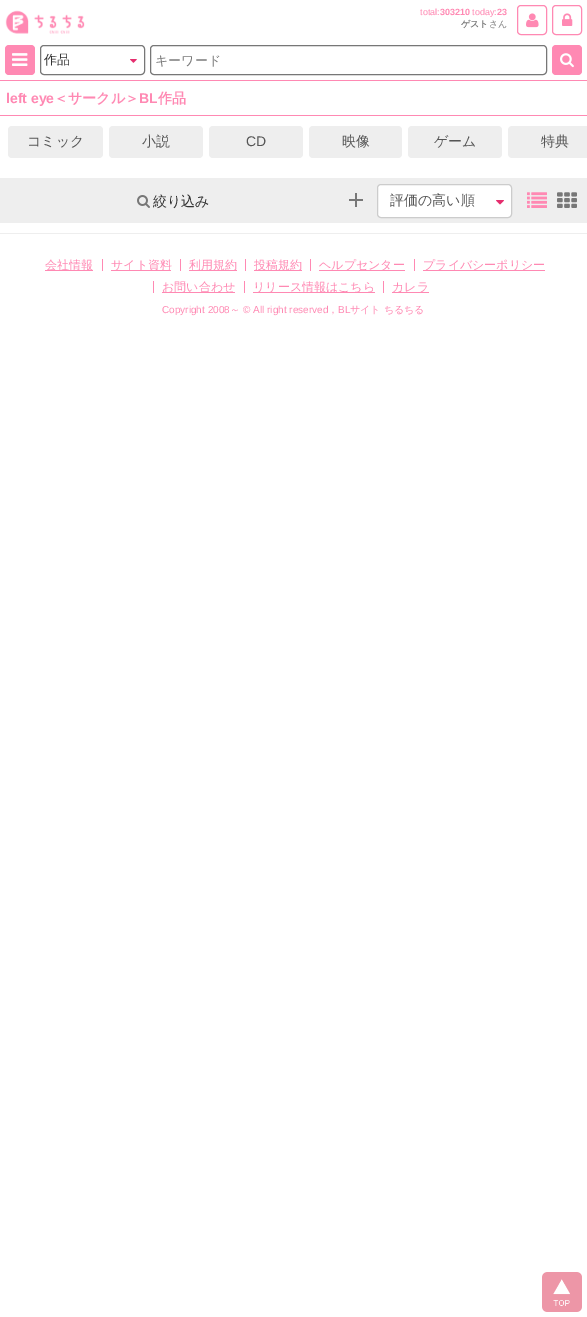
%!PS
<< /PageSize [587 1317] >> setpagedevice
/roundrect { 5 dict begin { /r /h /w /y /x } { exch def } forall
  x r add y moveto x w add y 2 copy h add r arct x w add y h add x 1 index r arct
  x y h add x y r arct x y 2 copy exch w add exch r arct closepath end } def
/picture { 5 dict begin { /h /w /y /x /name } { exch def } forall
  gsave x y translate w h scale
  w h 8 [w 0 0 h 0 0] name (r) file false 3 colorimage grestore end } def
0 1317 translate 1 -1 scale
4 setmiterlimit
1 setgray
0 0 587 1317 rectfill
(img1.rgb) 5 10 80 24 picture
/LiberationSans-Regular [9 0 0 -9 0 0] selectfont
1 0.537 0.702 setrgbcolor
420 15 moveto (total:) show
/LiberationSans-Bold [9 0 0 -9 0 0] selectfont
440 15 moveto (303210) show
/LiberationSans-Regular [9 0 0 -9 0 0] selectfont
472 15 moveto (today:) show
/LiberationSans-Bold [9 0 0 -9 0 0] selectfont
497 15 moveto (23) show
/WenQuanYiZenHei-Bold [9 0 0 -9 0 0] selectfont
0.467 setgray
461 27 moveto (ゲスト) show
/WenQuanYiZenHei-Medium [9 0 0 -9 0 0] selectfont
489 27 moveto (さん) show
1 0.537 0.702 setrgbcolor
517.5 5.5 29 29 3.5 roundrect stroke
(img2.rgb) 526 13 13 15 picture
552.5 5.5 29 29 3.5 roundrect stroke
(img3.rgb) 562 13 11 13 picture
5 45 30 30 4 roundrect fill
(img4.rgb) 12 53 16 13 picture
0.467 setgray
40.5 45.5 104 29 3.5 roundrect stroke
/WenQuanYiZenHei-Medium [13 0 0 -13 0 0] selectfont
0.2 setgray
44 64 moveto (作品) show
(img5.rgb) 130 59 7 4 picture
0.467 setgray
150.5 45.5 396 29 3.5 roundrect stroke
155 65 moveto (キーワード) show
1 0.537 0.702 setrgbcolor
552 45 30 30 4 roundrect fill
(img6.rgb) 560 53 14 15 picture
0 80 587 1 rectfill
0 115 587 1 rectfill
/LiberationSans-Bold [14 0 0 -14 0 0] selectfont
6 103 moveto (left eye) show
/WenQuanYiZenHei-Bold [14 0 0 -14 0 0] selectfont
54 103 moveto (＜サークル＞) show
/LiberationSans-Bold [14 0 0 -14 0 0] selectfont
139 103 moveto (BL) show
/WenQuanYiZenHei-Bold [14 0 0 -14 0 0] selectfont
158 103 moveto (作品) show
0.933 setgray
8 126 95 32 4 roundrect fill
/WenQuanYiZenHei-Medium [14 0 0 -14 0 0] selectfont
0.333 setgray
27 146 moveto (コミック) show
0.933 setgray
109 126 94 32 4 roundrect fill
0.333 setgray
142 146 moveto (小説) show
0.933 setgray
209 126 94 32 4 roundrect fill
/LiberationSans-Regular [14 0 0 -14 0 0] selectfont
0.333 setgray
246 146 moveto (CD) show
0.933 setgray
309 126 93 32 4 roundrect fill
/WenQuanYiZenHei-Medium [14 0 0 -14 0 0] selectfont
0.333 setgray
342 146 moveto (映像) show
0.933 setgray
408 126 94 32 4 roundrect fill
0.333 setgray
434 146 moveto (ゲーム) show
0.933 setgray
newpath 512 126 moveto 587 126 lineto 587 158 lineto 512 158 lineto 510 158 508 156 508 154 curveto 508 130 lineto 508 128 510 126 512 126 curveto closepath fill
0.333 setgray
541 146 moveto (特典) show
0.933 setgray
0 178 587 45 rectfill
(img7.rgb) 137 195 13 13 picture
0.2 setgray
153 206 moveto (絞り込み) show
0.467 setgray
355 193 2 14 rectfill
349 199 14 2 rectfill
1 setgray
377.5 184.5 134 33 3.5 roundrect gsave fill grestore
0.8 setgray
stroke
0.333 setgray
390 205 moveto (評価の高い順) show
(img8.rgb) 496 200 8 5 picture
(img9.rgb) 527 192 20 16 picture
(img10.rgb) 557 192 20 16 picture
0.933 setgray
0 233 587 1 rectfill
(img11.rgb) 542 1272 40 40 picture
1 0.537 0.702 setrgbcolor
45 270 48 1 rectfill
/WenQuanYiZenHei-Medium [12 0 0 -12 0 0] selectfont
45 269 moveto (会社情報) show
102 259 1 12 rectfill
111 270 60 1 rectfill
111 269 moveto (サイト資料) show
180 259 1 12 rectfill
189 270 48 1 rectfill
189 269 moveto (利用規約) show
245 259 1 12 rectfill
254 270 48 1 rectfill
254 269 moveto (投稿規約) show
310 259 1 12 rectfill
319 270 86 1 rectfill
319 269 moveto (ヘルプセンター) show
414 259 1 12 rectfill
423 270 122 1 rectfill
423 269 moveto (プライバシーポリシー) show
153 281 1 12 rectfill
162 292 73 1 rectfill
162 291 moveto (お問い合わせ) show
244 281 1 12 rectfill
253 292 122 1 rectfill
253 291 moveto (リリース情報はこちら) show
383 281 1 12 rectfill
392 292 37 1 rectfill
392 291 moveto (カレラ) show
/LiberationSans-Regular [10 0 0 -10 0 0] selectfont
162 313 moveto (Copyright 2008) show
/WenQuanYiZenHei-Medium [10 0 0 -10 0 0] selectfont
230 313 moveto (～) show
/LiberationSans-Regular [10 0 0 -10 0 0] selectfont
243 313 moveto (© All right reserved) show
338 313 moveto (BL) show
/WenQuanYiZenHei-Medium [10 0 0 -10 0 0] selectfont
350 313 moveto (サイト ちるちる) show
328 313 moveto (，) show
showpage
